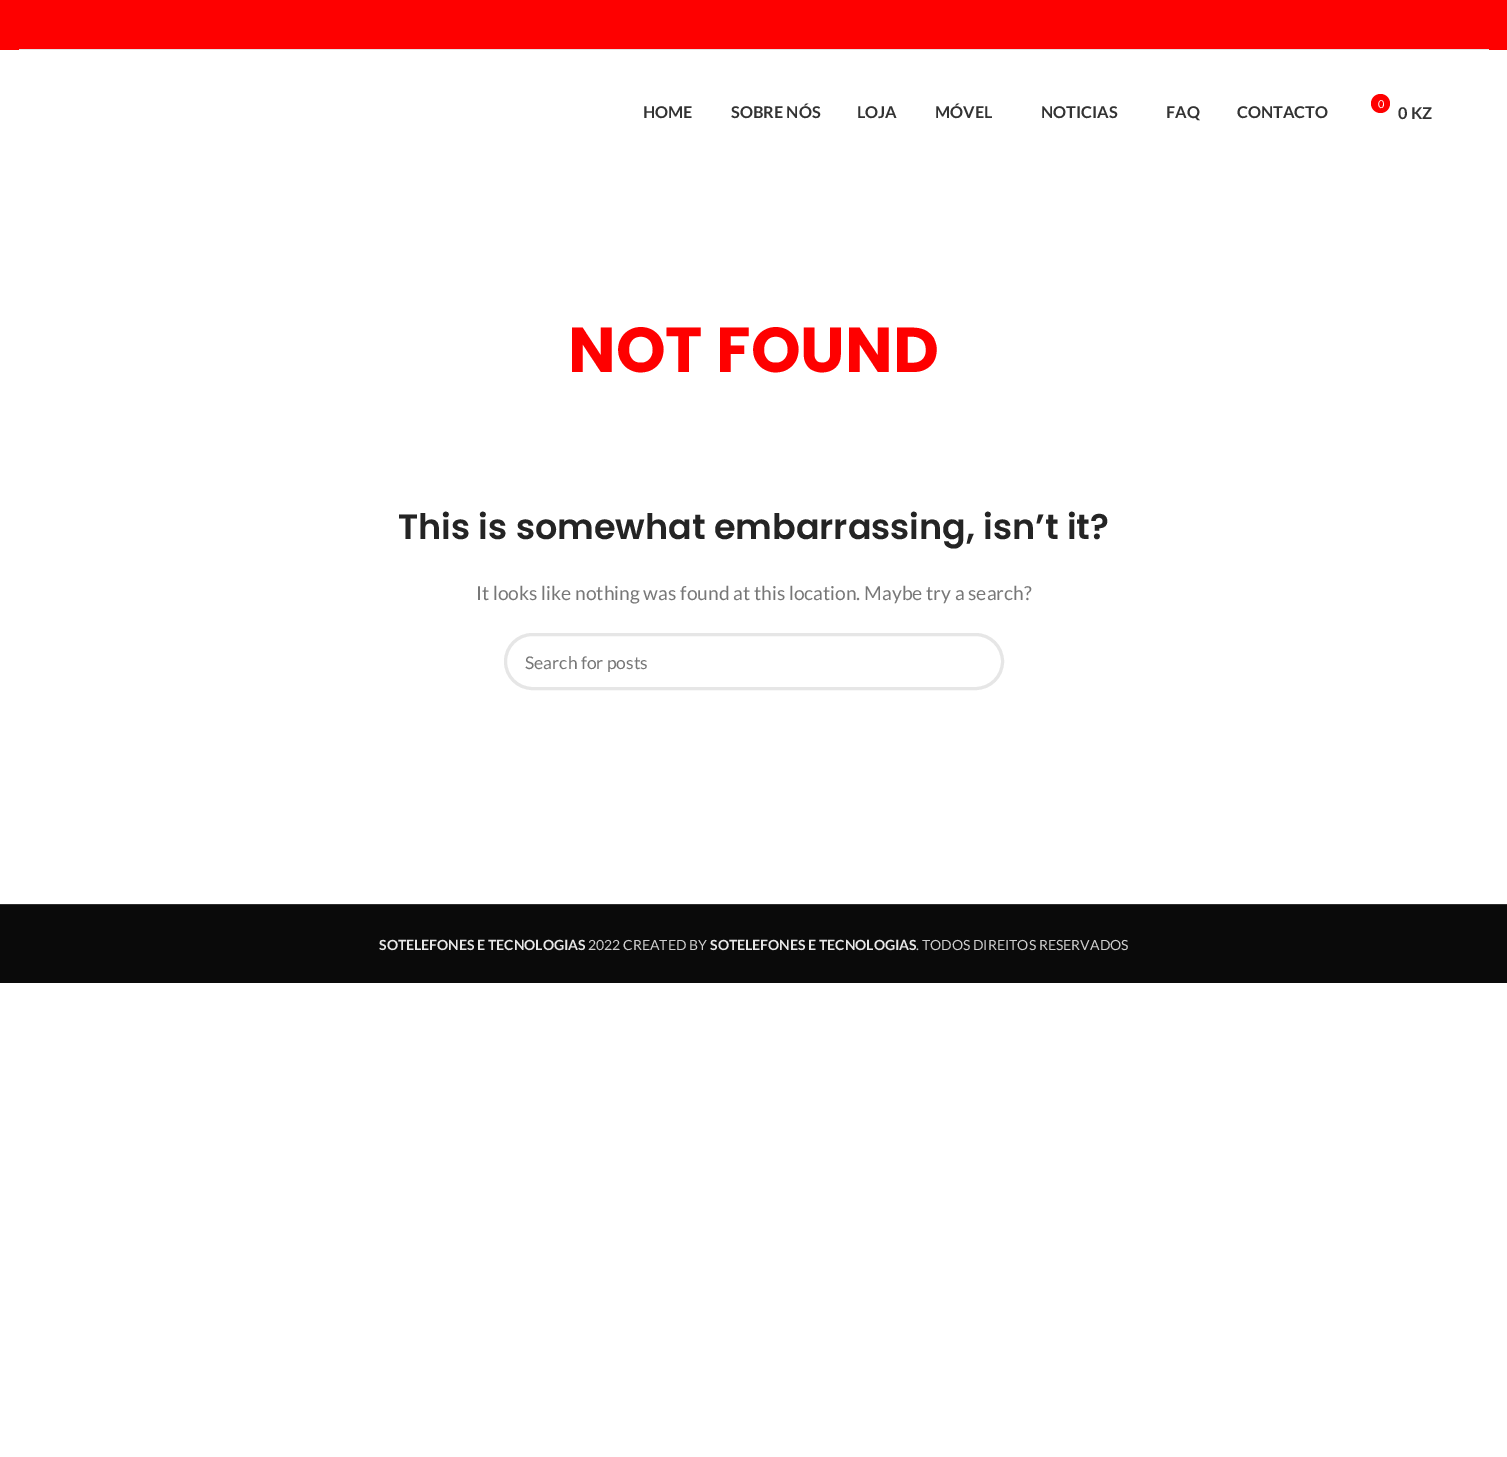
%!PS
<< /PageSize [1507 1457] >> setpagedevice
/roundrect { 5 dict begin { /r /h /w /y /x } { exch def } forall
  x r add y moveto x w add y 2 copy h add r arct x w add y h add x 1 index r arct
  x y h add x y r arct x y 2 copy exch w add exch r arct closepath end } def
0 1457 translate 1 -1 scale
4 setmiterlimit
1 setgray
0 0 1507 1457 rectfill
0.996 0 0 setrgbcolor
0 0 1507 50 rectfill
0.89 setgray
19 49 1470 1 rectfill
/Lato-Bold [16.25 0 0 -16.25 0 0] selectfont
0.2 setgray
643 118 moveto (HOME) show
731 118 moveto (SOBRE NÓS) show
857 118 moveto (LOJA) show
935 118 moveto (MÓVEL) show
1041 118 moveto (NOTICIAS) show
1166 118 moveto (FAQ) show
1237 118 moveto (CONTACTO) show
0.996 0 0 setrgbcolor
newpath 1380.5 103.5 9.5 0 360 arc closepath fill
/Lato-Regular [11 0 0 -11 0 0] selectfont
1 setgray
1378 108 moveto (0) show
/Lato-Bold [16.25 0 0 -16.25 0 0] selectfont
0.2 setgray
1398 119 moveto (0 KZ) show
/Poppins-Bold [63.25 0 0 -63.25 0 0] selectfont
0.996 0 0 setrgbcolor
568 372 moveto (NOT FOUND) show
/Poppins-SemiBold [35 0 0 -35 0 0] selectfont
0.141 setgray
398 539 moveto (This is somewhat embarrassing, isn’t it?) show
/Lato-Regular [19.25 0 0 -19.25 0 0] selectfont
0.467 setgray
476 600 moveto (It looks like nothing was found at this location. Maybe try a search?) show
0.902 setgray
3 setlinewidth
505.5 634.5 497 54 27 roundrect stroke
/Lato-Regular [17.5 0 0 -17.5 0 0] selectfont
0.467 setgray
525 669 moveto (Search for posts) show
0.039 setgray
0 905 1507 78 rectfill
0.184 setgray
0 904 1507 1 rectfill
/Lato-Bold [14 0 0 -14 0 0] selectfont
0.906 setgray
379 950 moveto (SOTELEFONES E TECNOLOGIAS) show
/Lato-Regular [14 0 0 -14 0 0] selectfont
0.808 setgray
588 950 moveto (2022 CREATED BY) show
/Lato-Bold [14 0 0 -14 0 0] selectfont
0.906 setgray
710 950 moveto (SOTELEFONES E TECNOLOGIAS) show
/Lato-Regular [14 0 0 -14 0 0] selectfont
0.808 setgray
916 950 moveto (. TODOS DIREITOS RESERVADOS) show
showpage
